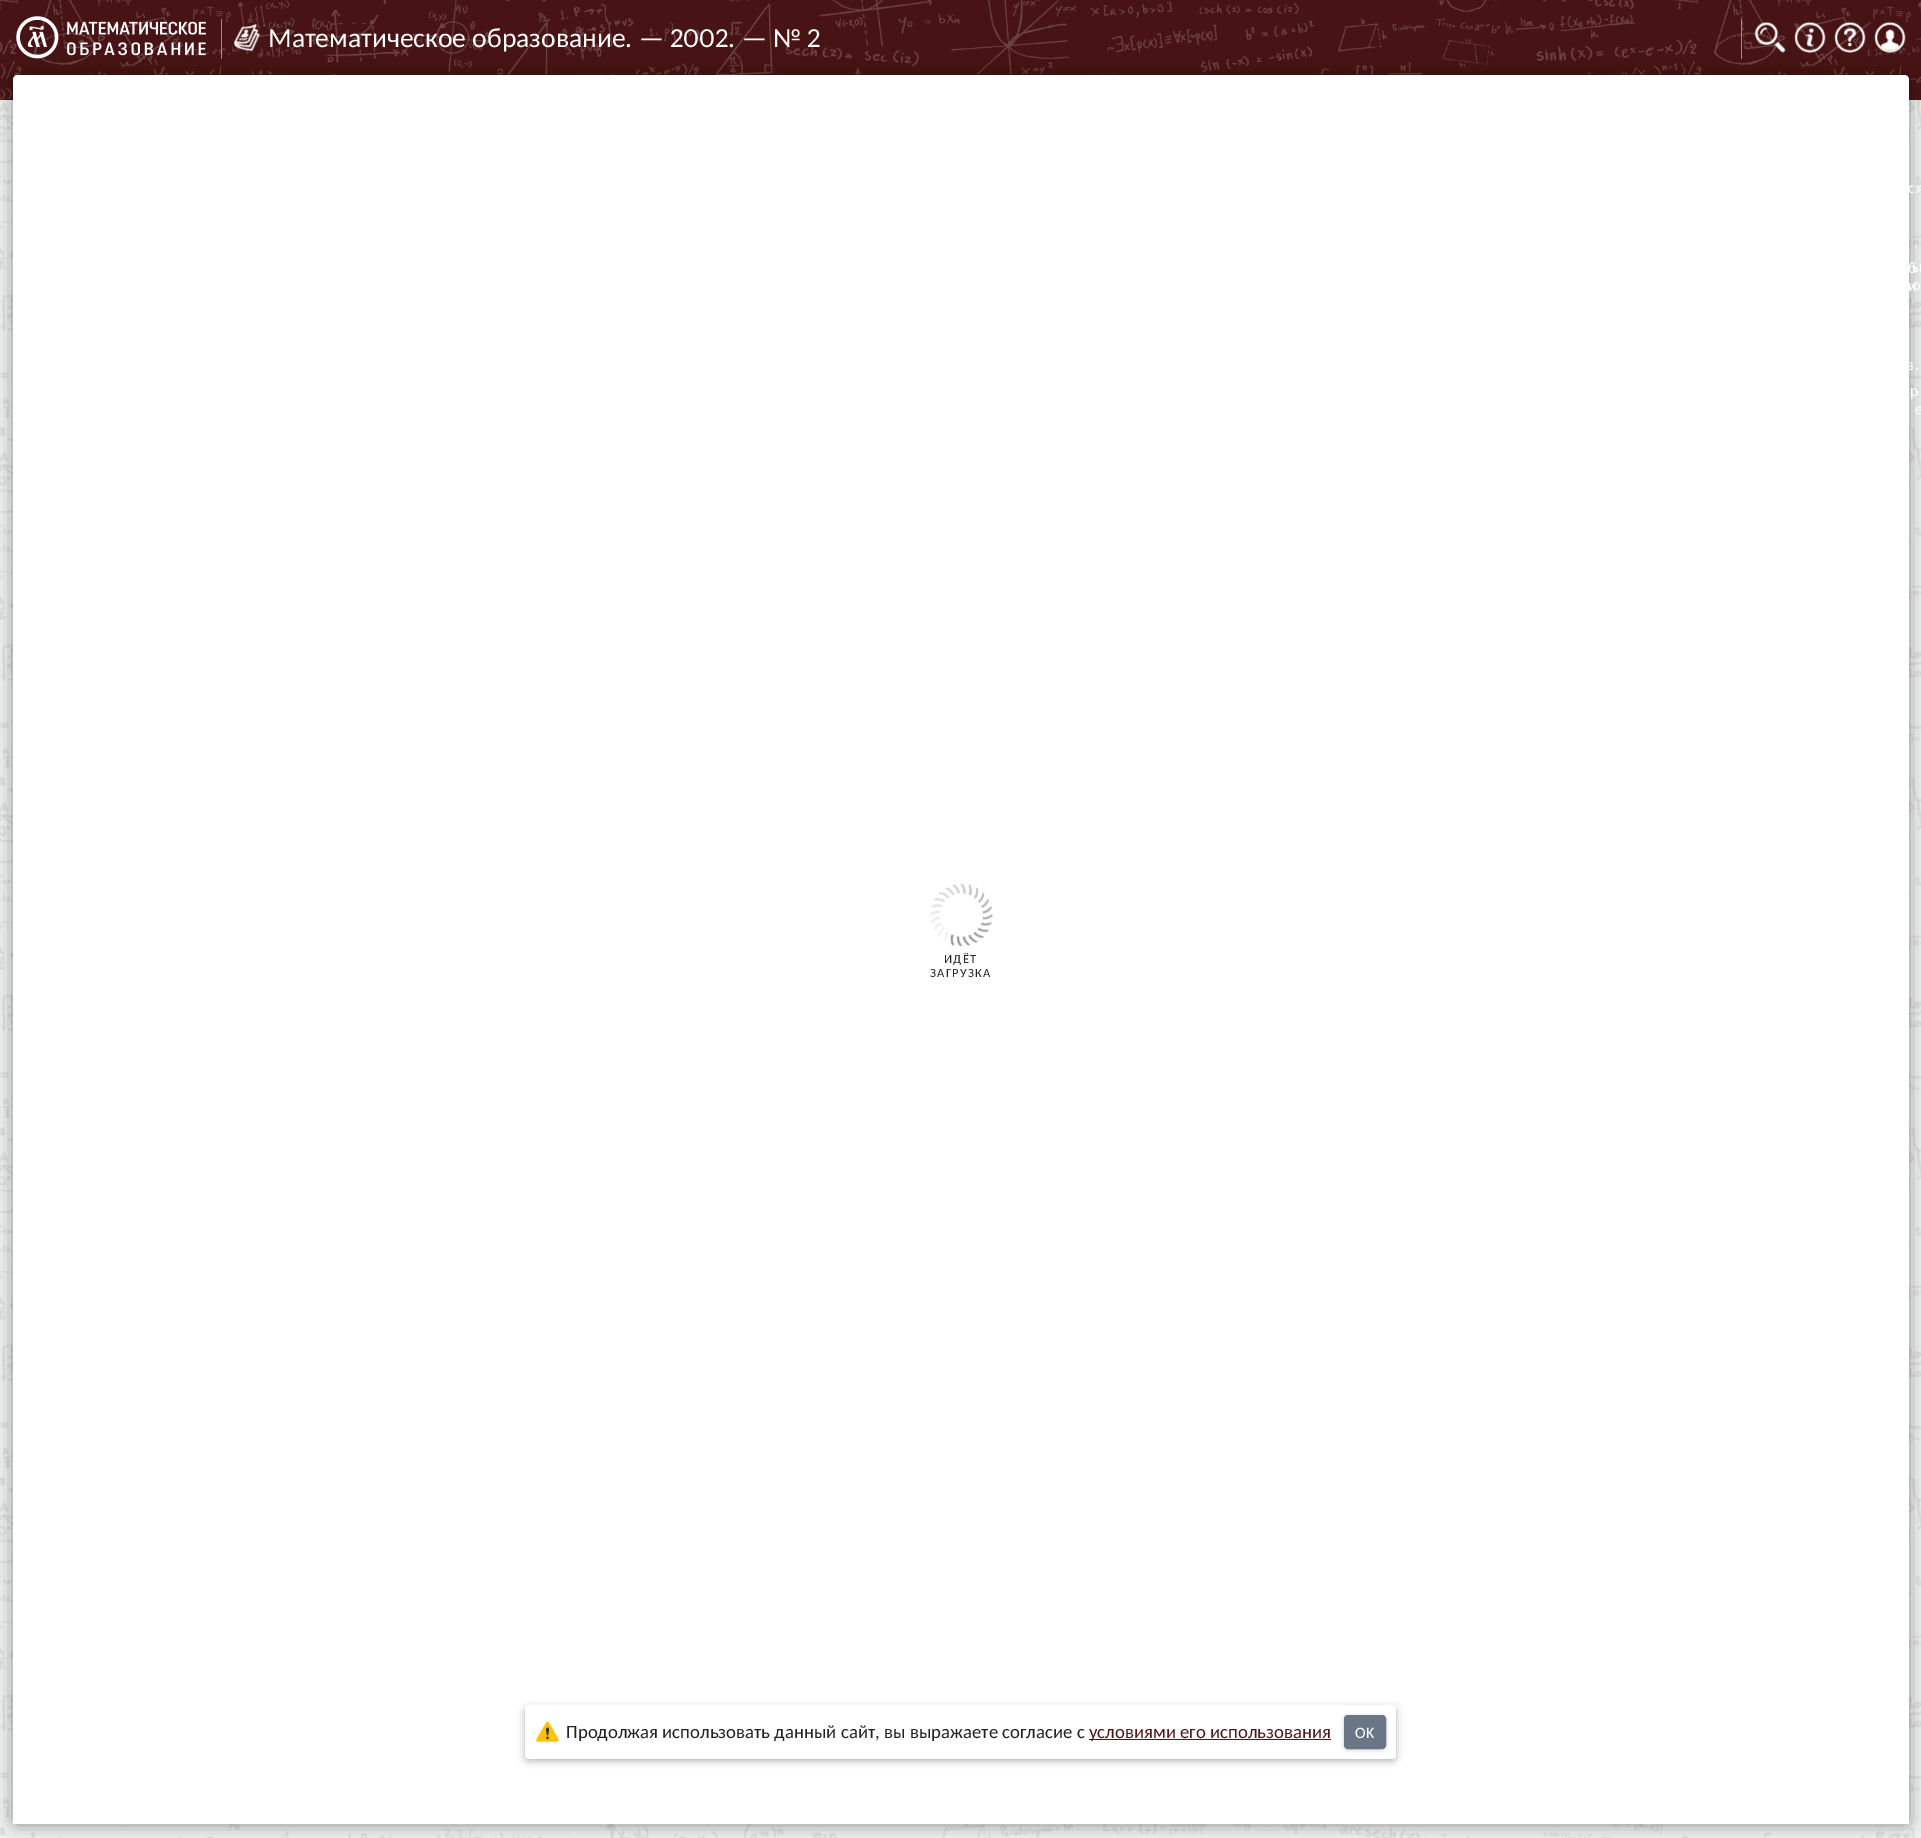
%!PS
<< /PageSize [1921 1838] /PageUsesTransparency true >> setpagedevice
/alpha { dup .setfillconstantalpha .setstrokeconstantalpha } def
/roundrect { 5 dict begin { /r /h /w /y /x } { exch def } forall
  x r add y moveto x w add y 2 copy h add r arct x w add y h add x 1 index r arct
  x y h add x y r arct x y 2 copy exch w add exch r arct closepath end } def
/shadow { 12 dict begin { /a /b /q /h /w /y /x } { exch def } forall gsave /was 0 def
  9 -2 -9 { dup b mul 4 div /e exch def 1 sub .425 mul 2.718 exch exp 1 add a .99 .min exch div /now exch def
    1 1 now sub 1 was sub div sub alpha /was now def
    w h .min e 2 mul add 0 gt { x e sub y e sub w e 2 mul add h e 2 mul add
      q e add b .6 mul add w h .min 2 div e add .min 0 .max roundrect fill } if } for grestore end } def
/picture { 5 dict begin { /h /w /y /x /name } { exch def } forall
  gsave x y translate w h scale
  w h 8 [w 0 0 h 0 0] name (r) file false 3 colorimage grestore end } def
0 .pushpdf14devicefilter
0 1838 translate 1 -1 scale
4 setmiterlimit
1 setgray
0 0 1921 1838 rectfill
(img1.rgb) 0 100 1921 1738 picture
(img2.rgb) 0 0 1921 100 picture
(img3.rgb) 16 16 190 43 picture
0.5 alpha
1741 19 1 40 rectfill
221 19 1 40 rectfill
1 alpha
(img4.rgb) 234 24 27 28 picture
/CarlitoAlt-Regular [27.6 0 0 -27.6 0 0] selectfont
268 47 moveto (Математическое образование. — 2002. — № 2) show
(img5.rgb) 1755 21 31 32 picture
(img6.rgb) 1794 21 32 32 picture
(img7.rgb) 1834 21 32 32 picture
0 setgray
13 76 1896 1749 5 8 0.4 shadow
(img8.rgb) 1874 21 32 32 picture
/Carlito-Regular [16 0 0 -16 0 0] selectfont
1 setgray
1908 193 moveto 1.25 0 (ся) ashow
1912 272 moveto 1.25 0 (ы) ashow
1912 290 moveto 1.25 0 (о) ashow
1906 370 moveto 1.25 0 (в.) ashow
1910 396 moveto 1.25 0 (р) ashow
1915 414 moveto 1.25 0 (е) ashow
1914 247 moveto 1.25 0 (.) ashow
1908 273 moveto 1.25 0 (б) ashow
1908 291 moveto 1.25 0 (и) ashow
newpath 18 75 moveto 1904 75 lineto 1907 75 1909 77 1909 80 curveto 1909 1824 lineto 13 1824 lineto 13 80 lineto 13 77 15 75 18 75 curveto closepath fill
(img9.rgb) 930 884 63 62 picture
/Carlito-Regular [12.5 0 0 -12.5 0 0] selectfont
0.129 0.137 0.133 setrgbcolor
944 963 moveto 1.25 0 (ИДЁТ) ashow
930 977 moveto 1.25 0 (ЗАГРУЗКА) ashow
0 setgray
525 1708 871 53 4 4 0.3 shadow
1 setgray
525 1705 871 54 4 roundrect fill
(img10.rgb) 536 1721 23 21 picture
/Carlito-Regular [18.75 0 0 -18.75 0 0] selectfont
0.129 0.137 0.133 setrgbcolor
566 1738 moveto (Продолжая использовать данный сайт, вы выражаете согласие с) show
0.31 0.09 0.09 setrgbcolor
1089 1739 242 1 rectfill
1089 1738 moveto (условиями его использования) show
0 setgray
1344 1716 42 34 4 2 0.2 shadow
0.416 0.463 0.522 setrgbcolor
1344.5 1715.5 41 33 3.5 roundrect gsave fill grestore
stroke
/Carlito-Regular [16 0 0 -16 0 0] selectfont
1 setgray
1355 1738 moveto (OK) show
.poppdf14devicefilter showpage
